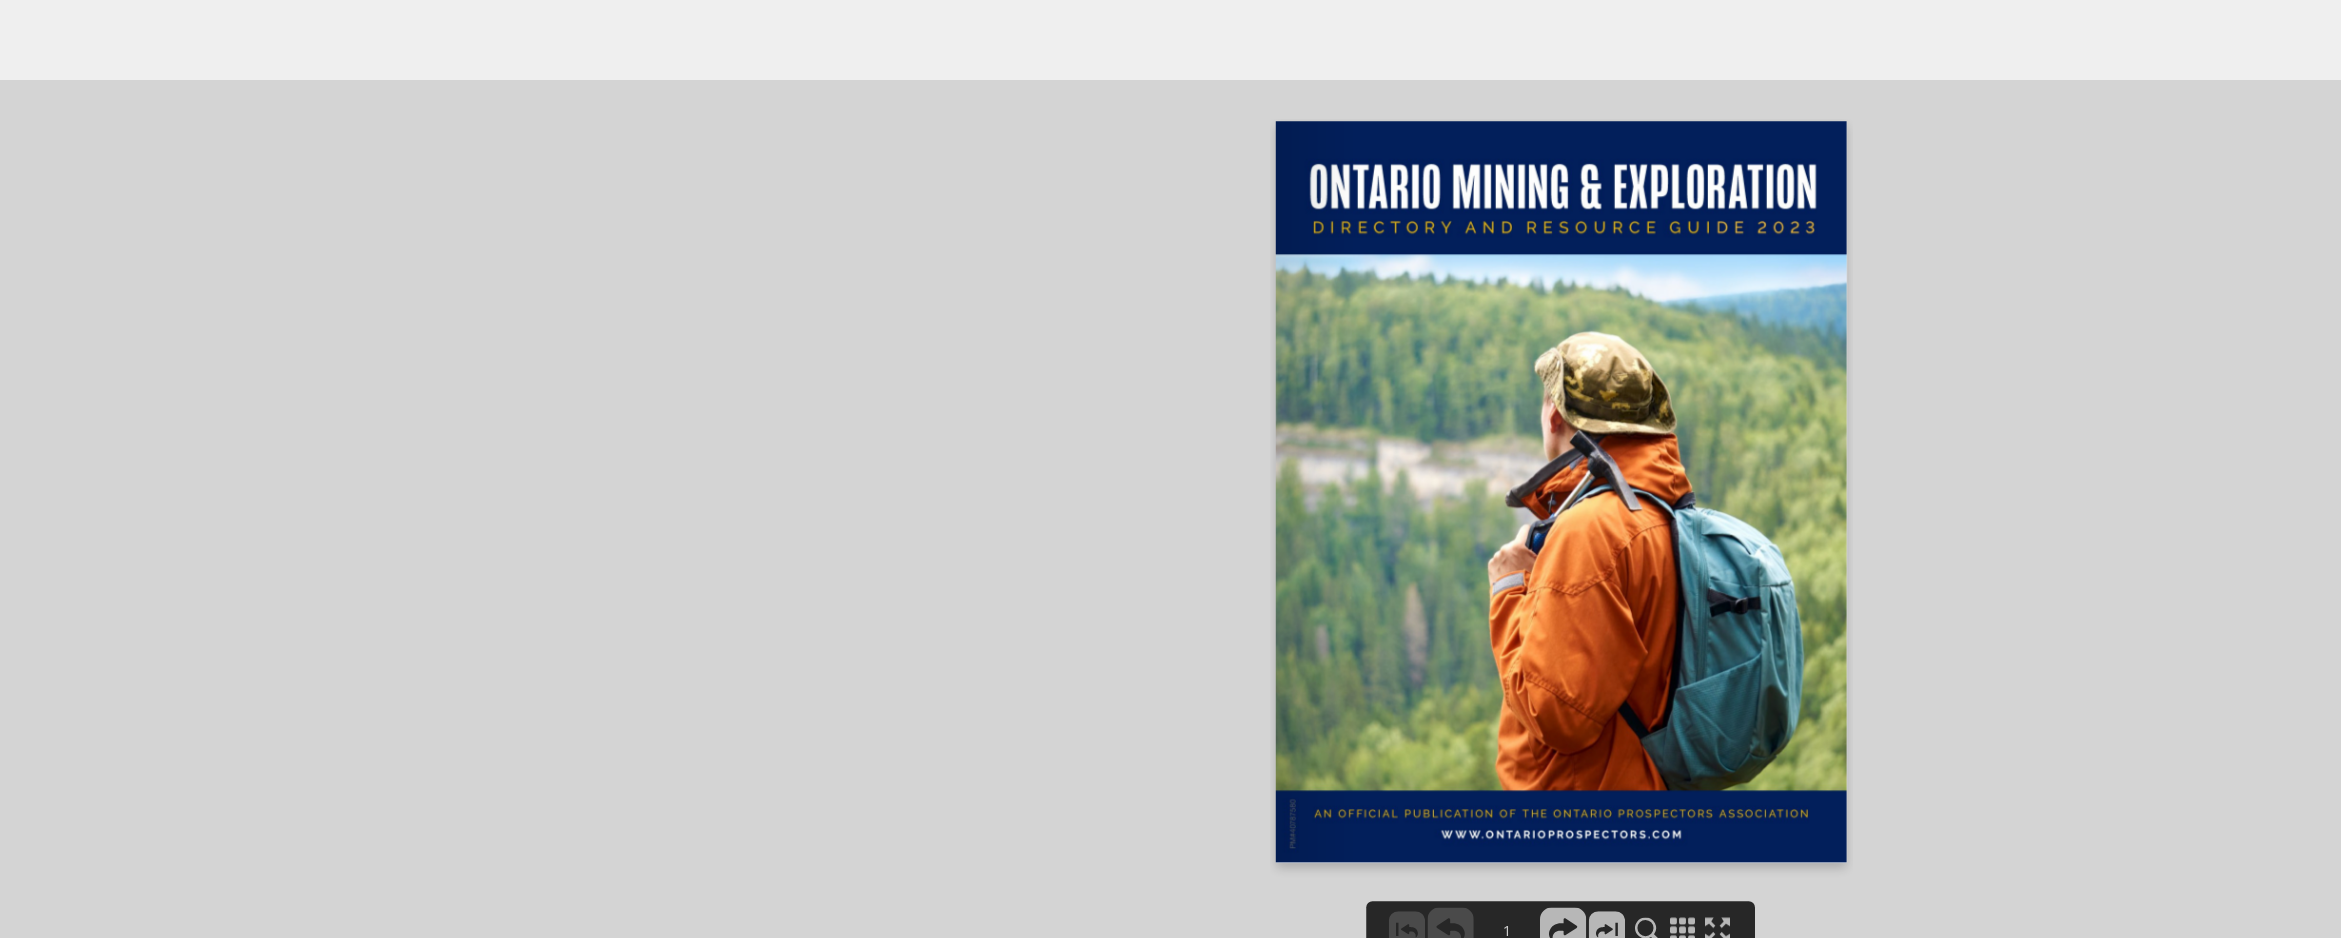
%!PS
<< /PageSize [2341 938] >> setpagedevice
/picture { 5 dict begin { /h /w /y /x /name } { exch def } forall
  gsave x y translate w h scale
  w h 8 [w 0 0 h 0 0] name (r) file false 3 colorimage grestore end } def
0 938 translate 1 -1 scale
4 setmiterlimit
0.937 setgray
0 0 2341 938 rectfill
0.831 setgray
0 80 2341 858 rectfill
(img1.rgb) 1270 119 583 819 picture
showpage
